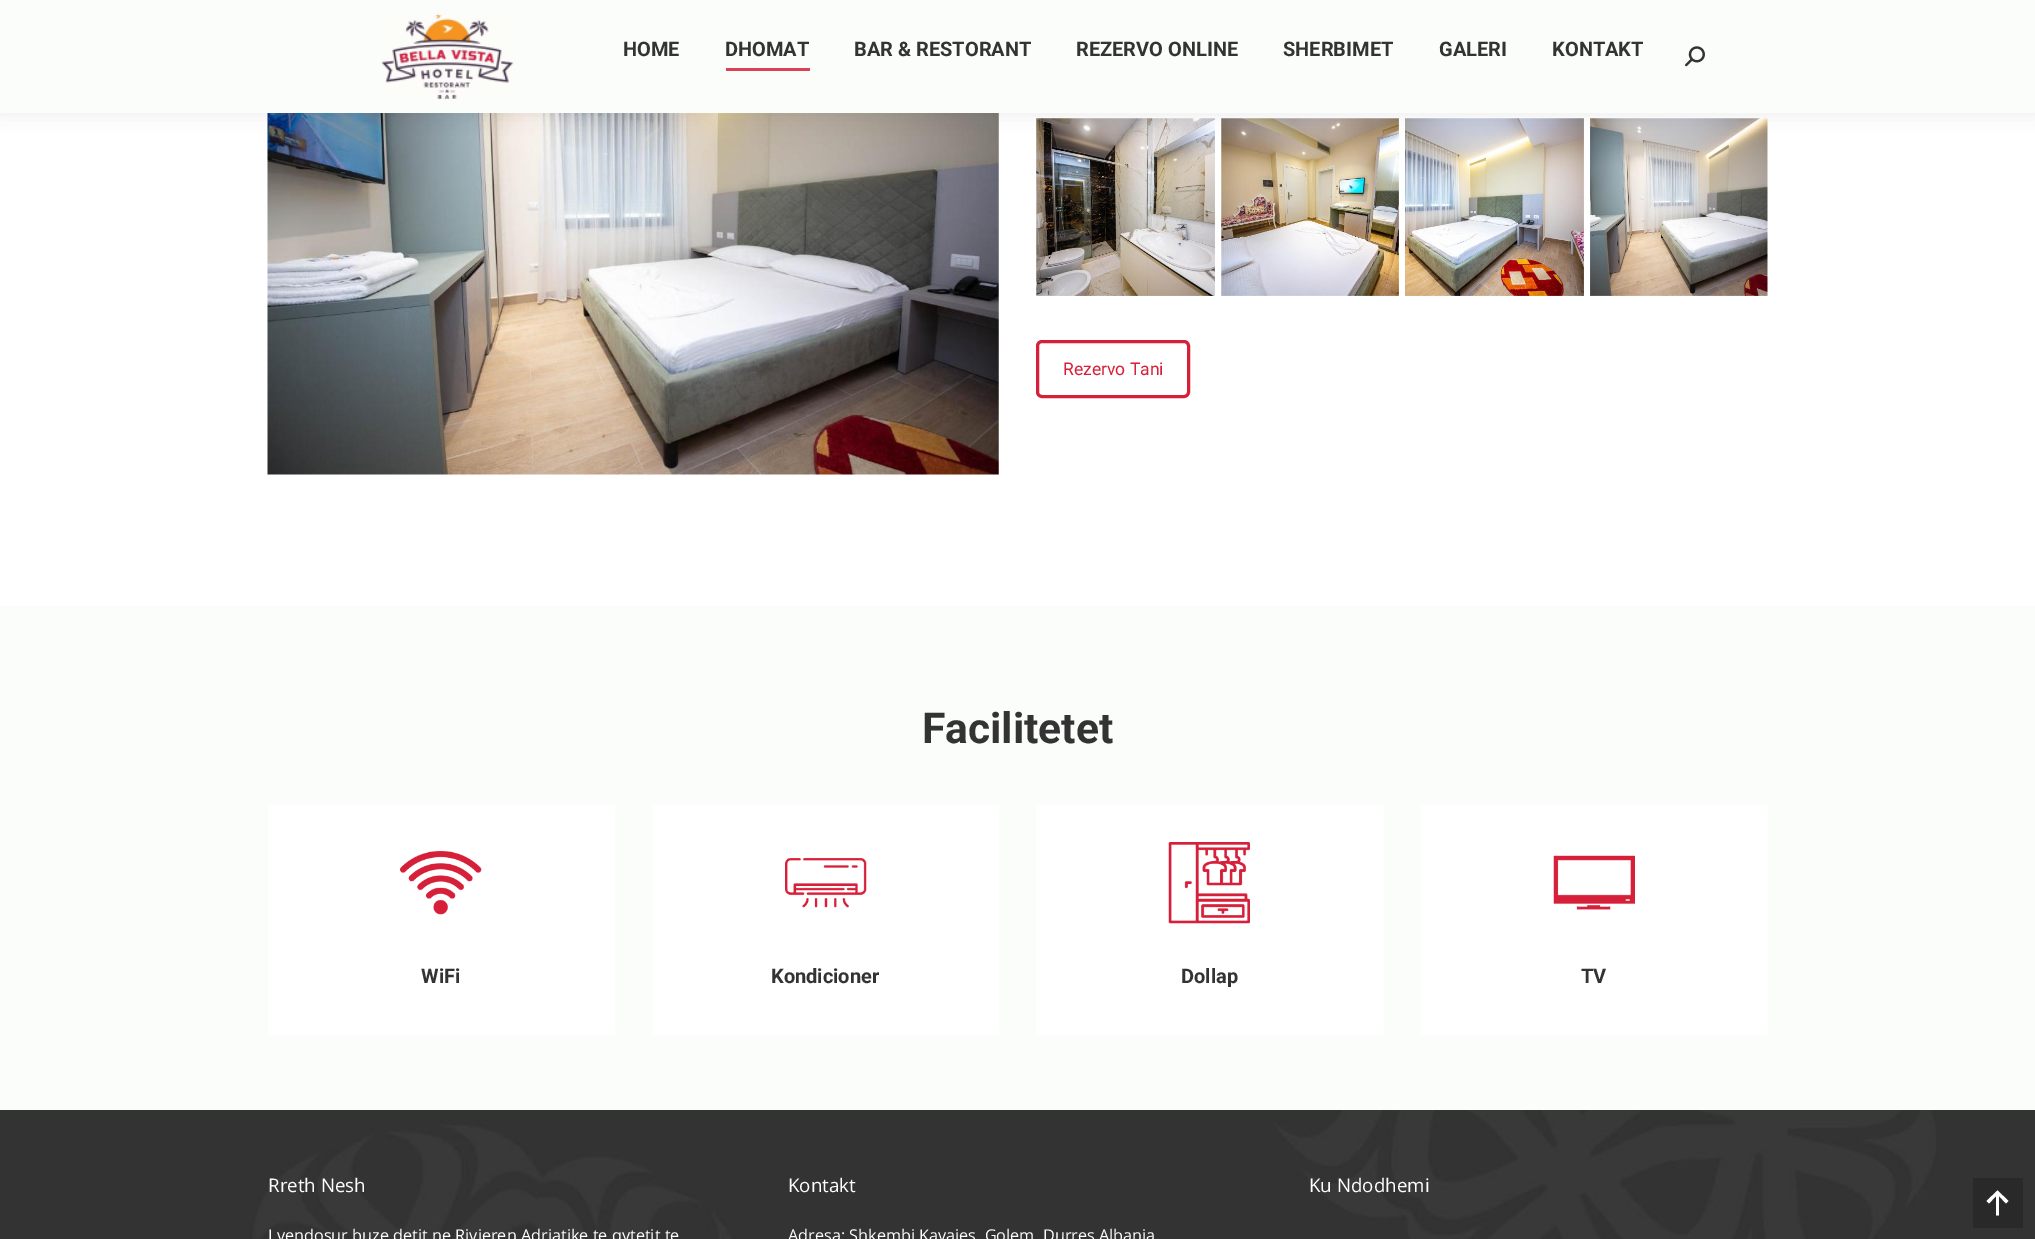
%!PS
<< /PageSize [2035 1239] /PageUsesTransparency true >> setpagedevice
/alpha { dup .setfillconstantalpha .setstrokeconstantalpha } def
/roundrect { 5 dict begin { /r /h /w /y /x } { exch def } forall
  x r add y moveto x w add y 2 copy h add r arct x w add y h add x 1 index r arct
  x y h add x y r arct x y 2 copy exch w add exch r arct closepath end } def
/shadow { 12 dict begin { /a /b /q /h /w /y /x } { exch def } forall gsave /was 0 def
  9 -2 -9 { dup b mul 4 div /e exch def 1 sub .425 mul 2.718 exch exp 1 add a .99 .min exch div /now exch def
    1 1 now sub 1 was sub div sub alpha /was now def
    w h .min e 2 mul add 0 gt { x e sub y e sub w e 2 mul add h e 2 mul add
      q e add b .6 mul add w h .min 2 div e add .min 0 .max roundrect fill } if } for grestore end } def
/picture { 5 dict begin { /h /w /y /x /name } { exch def } forall
  gsave x y translate w h scale
  w h 8 [w 0 0 h 0 0] name (r) file false 3 colorimage grestore end } def
0 .pushpdf14devicefilter
0 1239 translate 1 -1 scale
4 setmiterlimit
1 setgray
0 0 2035 1239 rectfill
(img3.rgb) 267 113 732 362 picture
(img4.rgb) 1036 118 179 178 picture
(img5.rgb) 1221 118 178 178 picture
(img6.rgb) 1405 118 179 178 picture
(img7.rgb) 1590 118 178 178 picture
0 setgray
-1 -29 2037 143 0 9.5 0.07 shadow
0.984 0.992 0.98 setrgbcolor
0 0 2035 113 rectfill
(img1.rgb) 381 13 133 86 picture
/Roboto-Bold [20 0 0 -20 0 0] selectfont
0.2 setgray
623 56 moveto (HOME) show
725 56 moveto (DHOMAT) show
0.863 0.251 0.333 setrgbcolor
726 68 84 3 rectfill
0.2 setgray
854 56 moveto (BAR & RESTORANT) show
1076 56 moveto (REZERVO ONLINE) show
1283 56 moveto (SHERBIMET) show
1439 56 moveto (GALERI) show
1552 56 moveto (KONTAKT) show
(img2.rgb) 1685 46 20 21 picture
0.839 0.122 0.22 setrgbcolor
3 setlinewidth
1037.5 341.5 151 55 4.5 roundrect stroke
/Roboto-Regular [17.5 0 0 -17.5 0 0] selectfont
1063 375 moveto (Rezervo Tani) show
0.984 0.992 0.98 setrgbcolor
0 606 2035 504 rectfill
/Roboto-Bold [42.5 0 0 -42.5 0 0] selectfont
0.2 setgray
922 743 moveto (Facilitetet) show
1 setgray
268 805 347 230 rectfill
(img8.rgb) 400 851 82 64 picture
/Roboto-Bold [20 0 0 -20 0 0] selectfont
0.2 setgray
421 983 moveto (WiFi) show
1 setgray
653 805 346 230 rectfill
(img9.rgb) 785 858 82 50 picture
0.2 setgray
771 983 moveto (Kondicioner) show
1 setgray
1036 805 348 230 rectfill
(img10.rgb) 1168 842 82 82 picture
0.2 setgray
1181 983 moveto (Dollap) show
1 setgray
1421 805 347 230 rectfill
(img11.rgb) 1553 855 82 55 picture
0.2 setgray
1581 983 moveto (TV) show
(img12.rgb) 0 1110 2035 129 picture
/OpenSans-Regular [18.75 0 0 -18.75 0 0] selectfont
1 setgray
268 1192 moveto (Rreth Nesh) show
/OpenSans-Regular [16.25 0 0 -16.25 0 0] selectfont
268 1241 moveto (I vendosur buze detit ne Rivieren Adriatike te qytetit te) show
/OpenSans-Regular [18.75 0 0 -18.75 0 0] selectfont
788 1192 moveto (Kontakt) show
/OpenSans-Regular [16.25 0 0 -16.25 0 0] selectfont
788 1241 moveto (Adresa: Shkembi Kavajes, Golem, Durres Albania) show
/OpenSans-Regular [18.75 0 0 -18.75 0 0] selectfont
1309 1192 moveto (Ku Ndodhemi) show
0.161 setgray
1973 1178 50 50 rectfill
1 setgray
newpath 1986.5 1201 moveto 1989 1203.5 lineto 1996 1196 lineto 1996 1215.5 lineto 1999 1215.5 lineto 1999 1196 lineto 2006 1203.5 lineto 2008.5 1201 lineto 1997.5 1190.5 lineto closepath fill
.poppdf14devicefilter showpage
